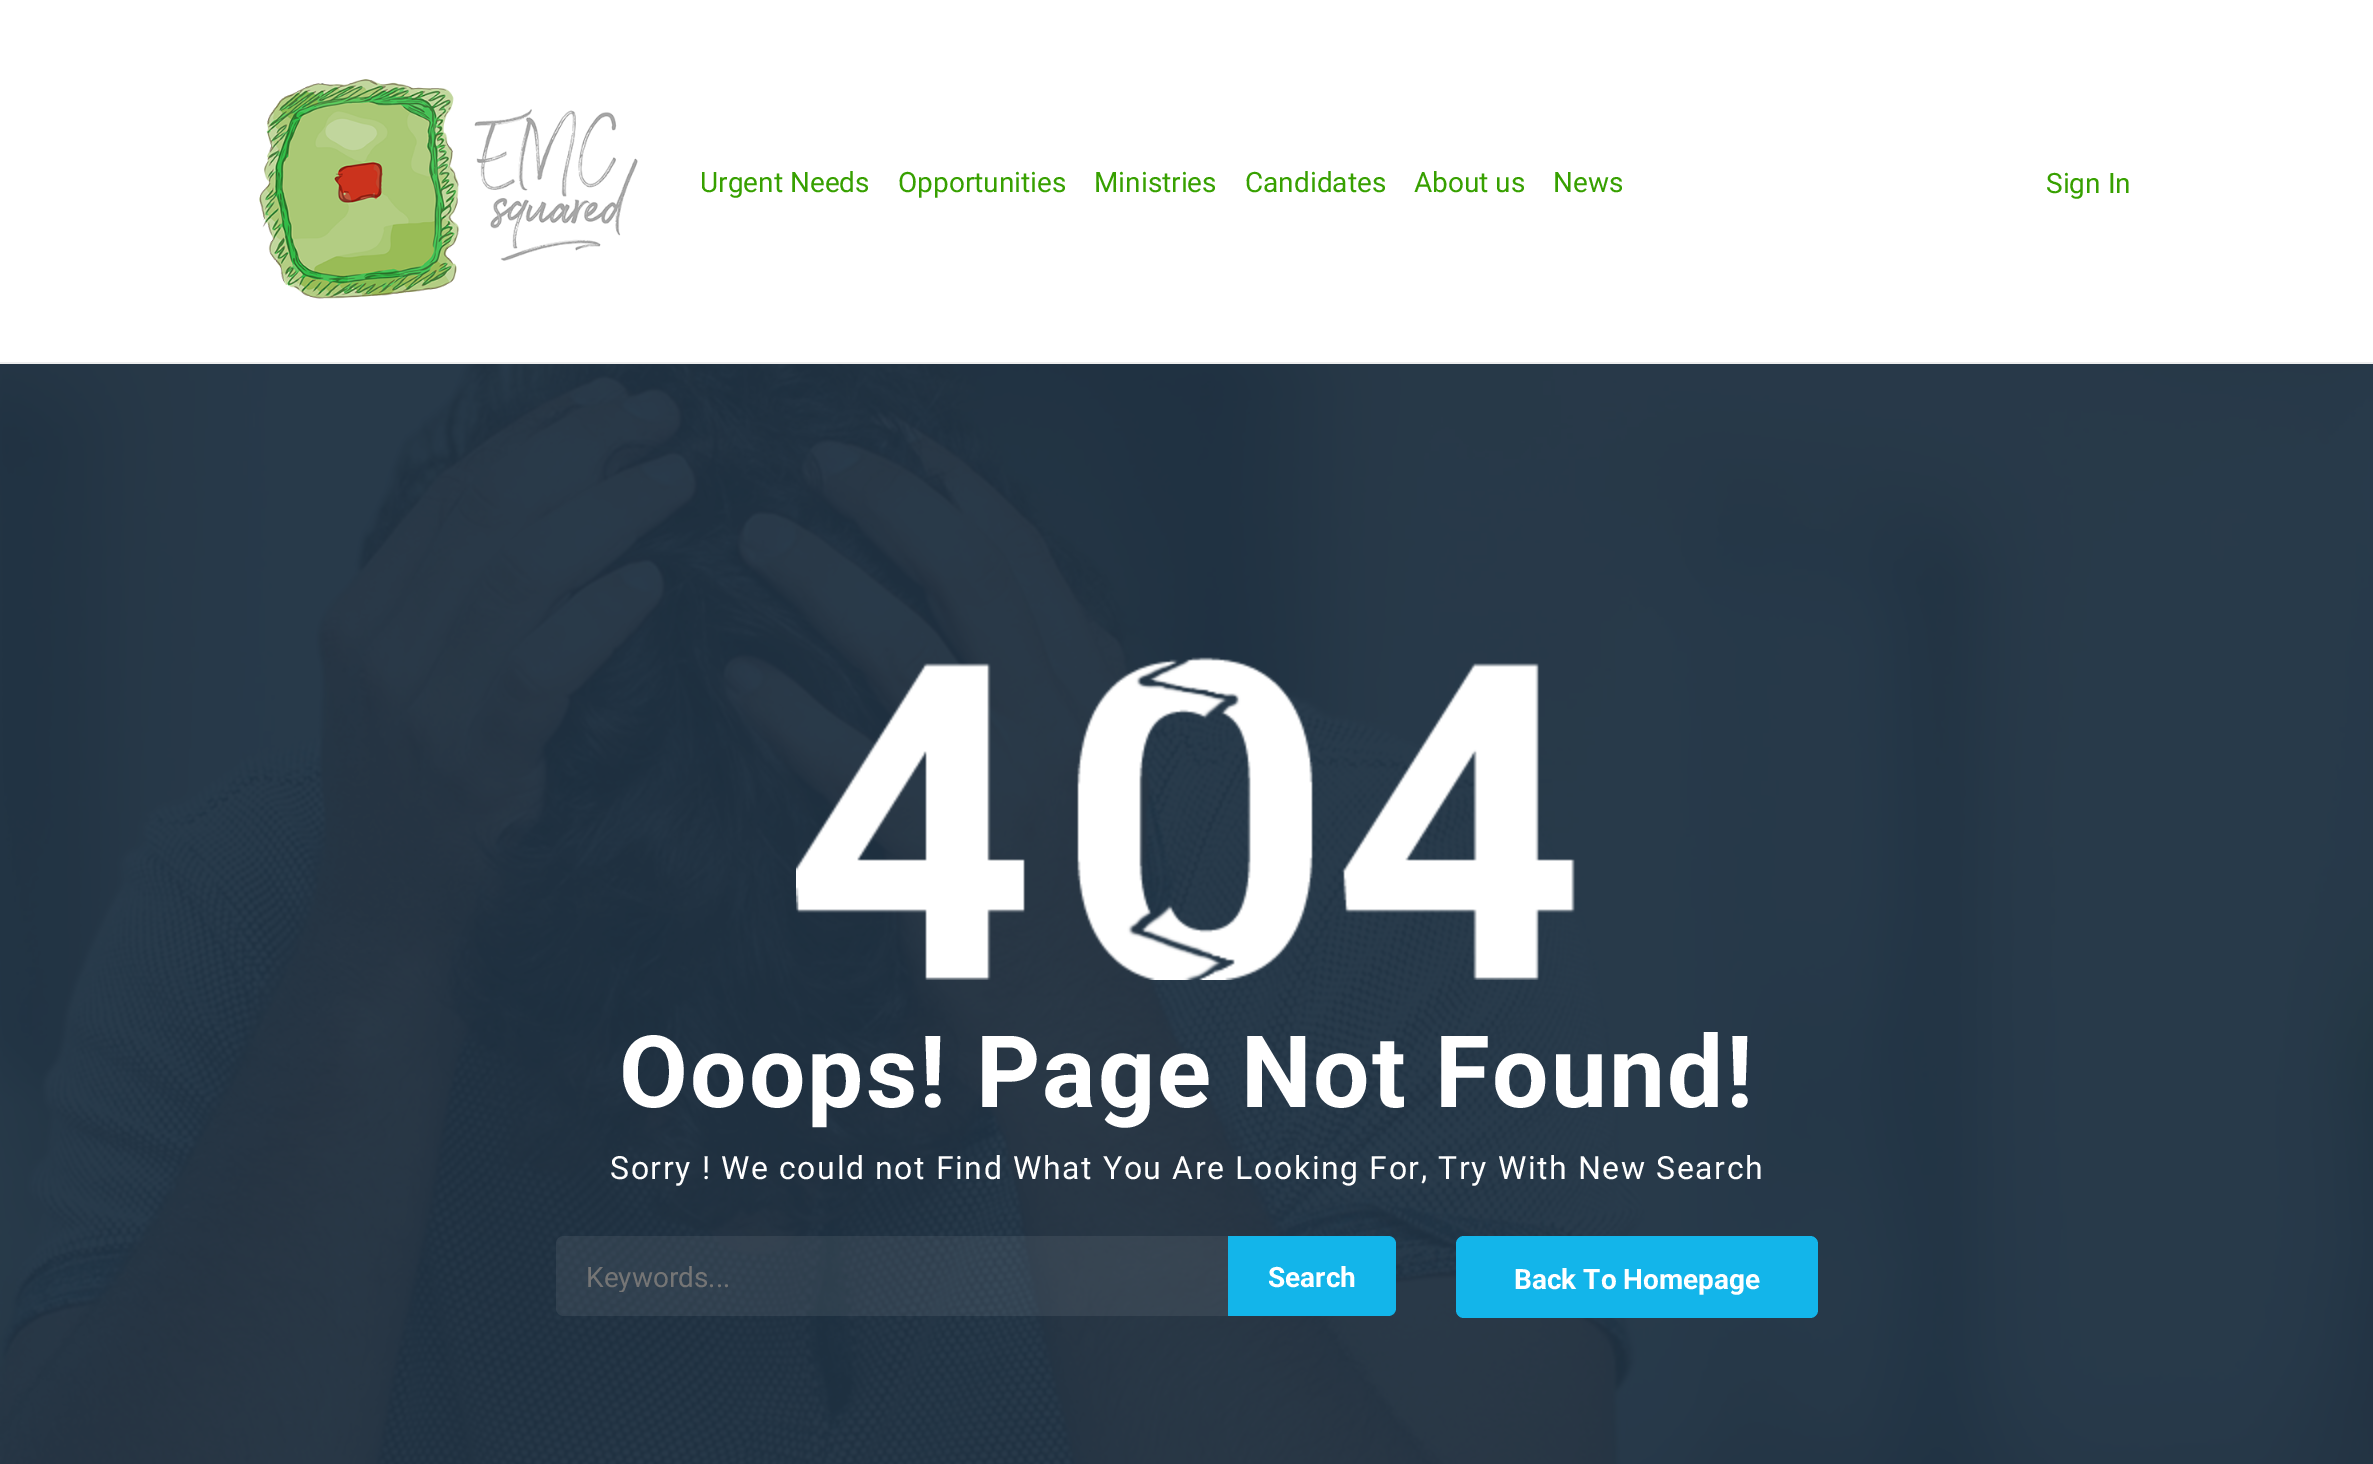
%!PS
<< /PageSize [2373 1464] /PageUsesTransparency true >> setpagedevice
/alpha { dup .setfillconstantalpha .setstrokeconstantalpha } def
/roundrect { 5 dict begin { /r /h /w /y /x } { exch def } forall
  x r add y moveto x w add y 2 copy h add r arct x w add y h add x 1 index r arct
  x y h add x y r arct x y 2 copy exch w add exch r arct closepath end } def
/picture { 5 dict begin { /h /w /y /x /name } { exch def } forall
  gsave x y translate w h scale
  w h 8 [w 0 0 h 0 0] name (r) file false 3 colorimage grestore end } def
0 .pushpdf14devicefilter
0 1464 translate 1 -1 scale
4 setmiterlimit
1 setgray
0 0 2373 1464 rectfill
0.933 setgray
0 362 2373 2 rectfill
(img1.rgb) 259 79 379 220 picture
/Roboto-Regular [28 0 0 -28 0 0] selectfont
0.216 0.627 0 setrgbcolor
700 192 moveto (Urgent Needs) show
898 192 moveto (Opportunities) show
1094 192 moveto (Ministries) show
1245 192 moveto (Candidates) show
1414 192 moveto (About us) show
1553 192 moveto (News) show
2046 193 moveto (Sign In) show
(img2.rgb) 0 364 2373 1100 picture
(img3.rgb) 796 657 779 323 picture
/Roboto-Bold [100 0 0 -100 0 0] selectfont
1 setgray
619 1107 moveto 2.2 0 (Ooops! Page Not Found!) ashow
/Roboto-Regular [32 0 0 -32 0 0] selectfont
610 1179 moveto 1.6 0 (Sorry ! We could not Find What You Are Looking For, Try With New Search) ashow
0.07 alpha
newpath 564 1236 moveto 1228 1236 lineto 1228 1316 lineto 564 1316 lineto 559.5 1316 556 1312.5 556 1308 curveto 556 1244 lineto 556 1239.5 559.5 1236 564 1236 curveto closepath fill
gsave
586 1260 612 32 rectclip
/Roboto-Regular [28 0 0 -28 0 0] selectfont
1 alpha
0.459 setgray
586 1287 moveto (Keywords...) show
grestore
1 alpha
0.075 0.71 0.918 setrgbcolor
newpath 1228 1236 moveto 1388 1236 lineto 1392.5 1236 1396 1239.5 1396 1244 curveto 1396 1308 lineto 1396 1312.5 1392.5 1316 1388 1316 curveto 1228 1316 lineto closepath fill
/Roboto-Bold [28 0 0 -28 0 0] selectfont
1 setgray
1268 1287 moveto (Search) show
0.075 0.71 0.918 setrgbcolor
1456 1236 362 82 8 roundrect fill
1 setgray
1514 1289 moveto (Back To Homepage) show
.poppdf14devicefilter showpage
